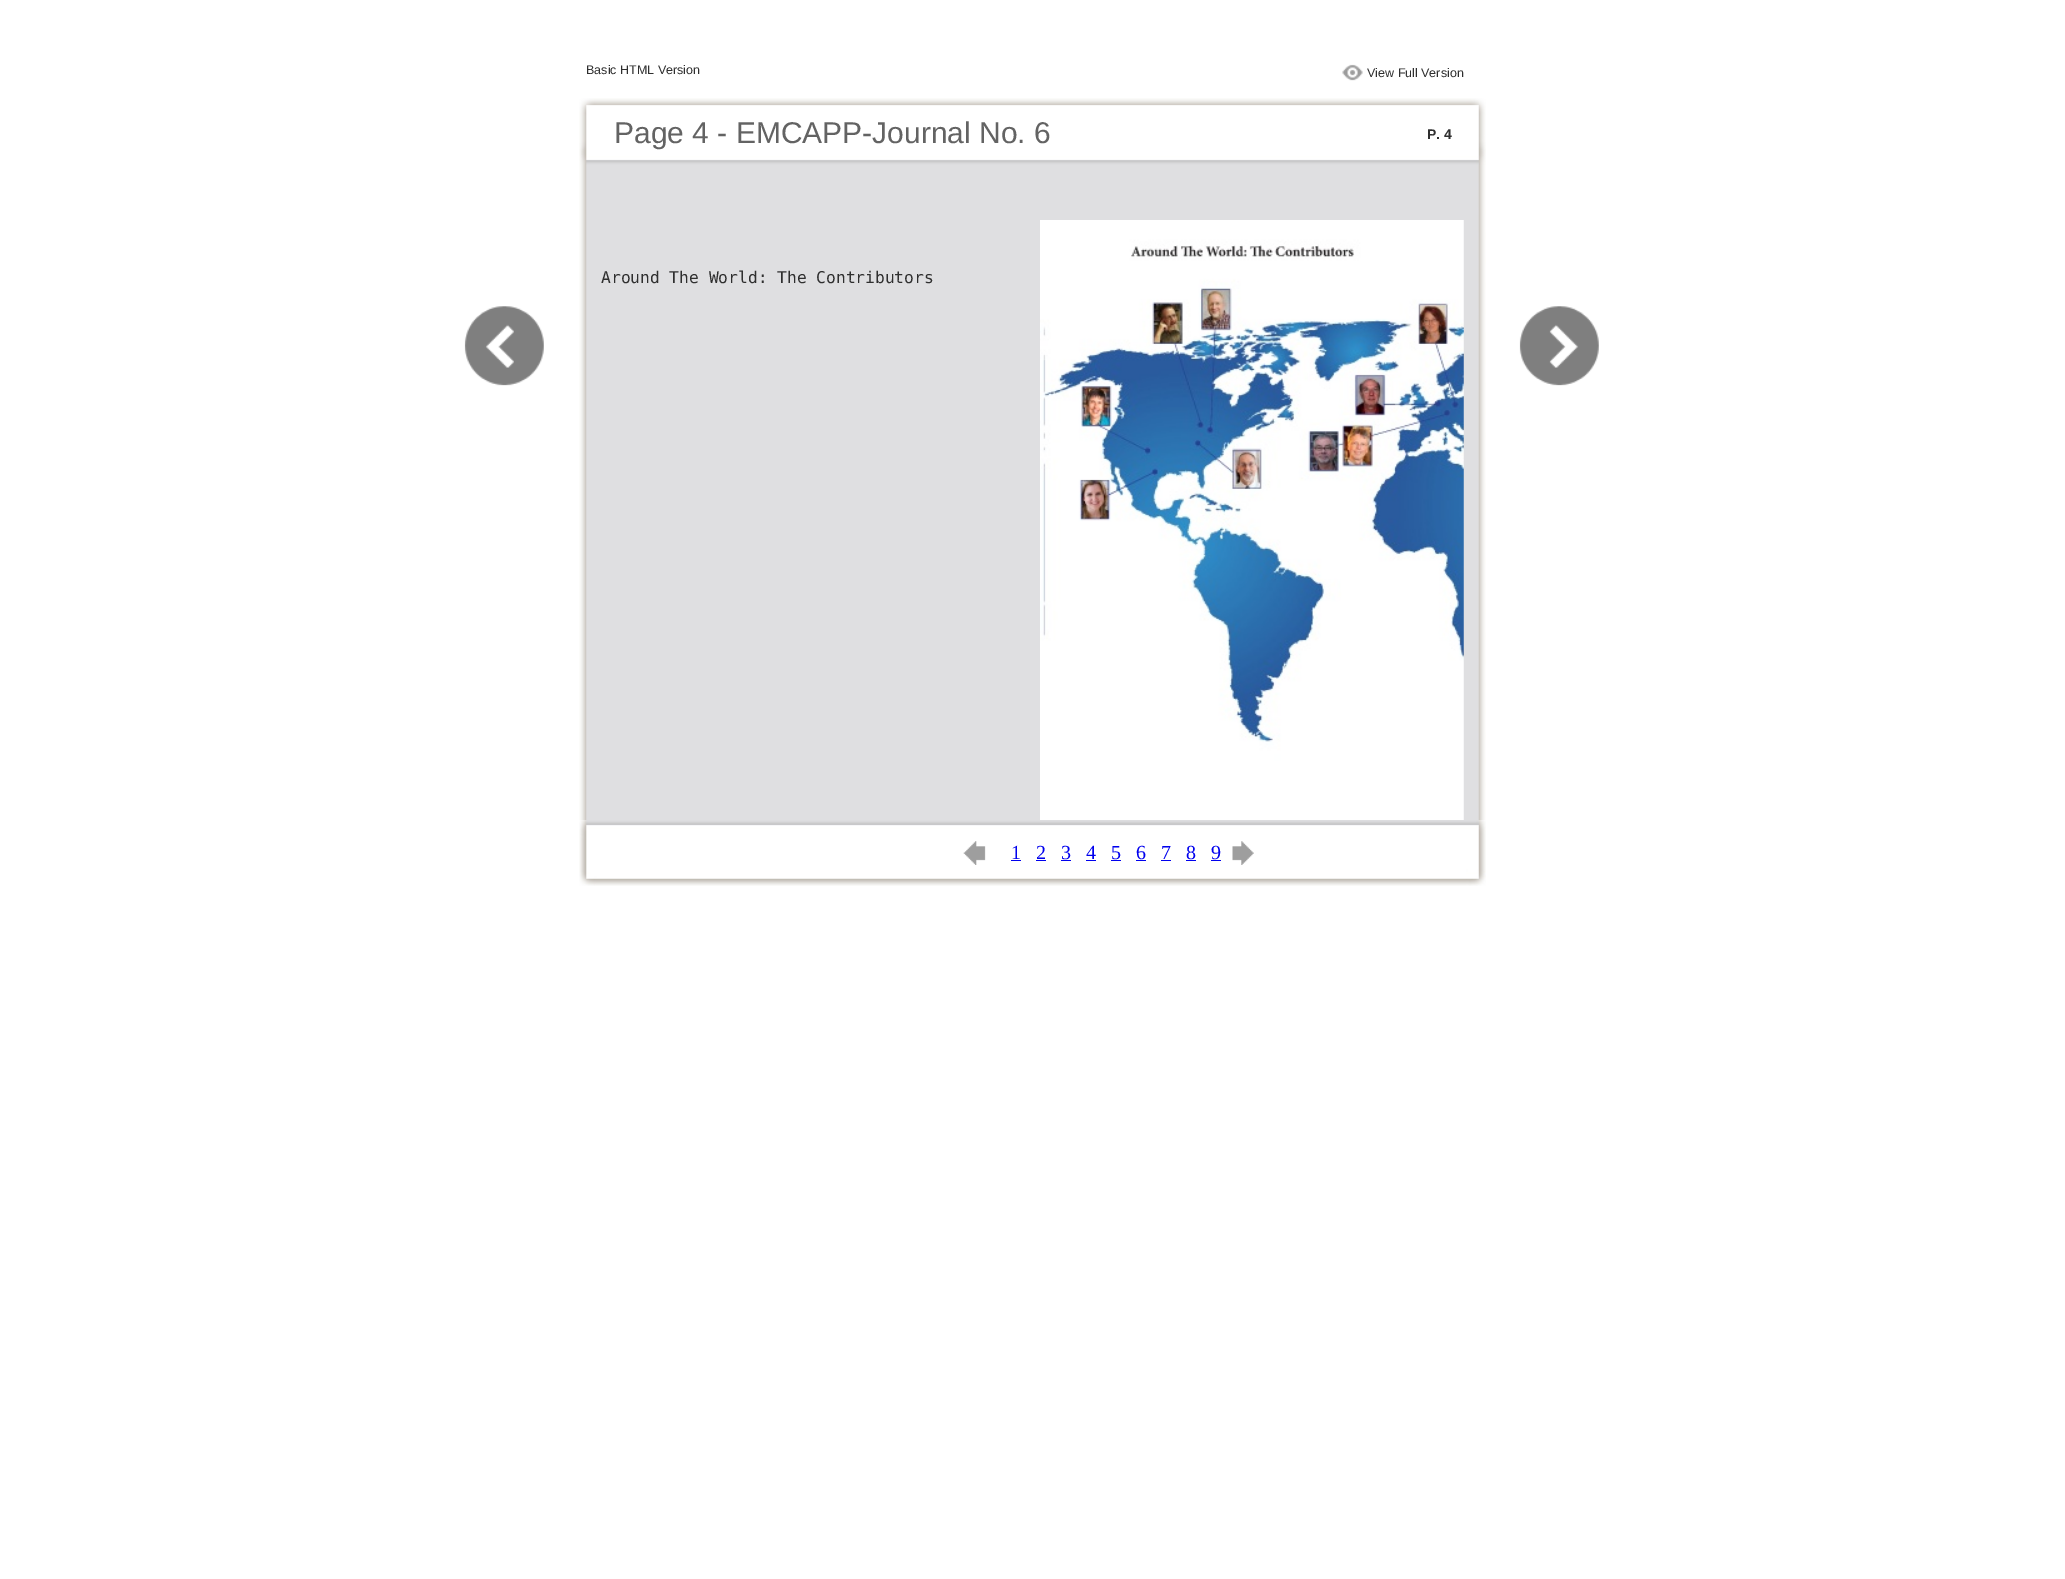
%!PS
<< /PageSize [2065 1579] >> setpagedevice
/picture { 5 dict begin { /h /w /y /x /name } { exch def } forall
  gsave x y translate w h scale
  w h 8 [w 0 0 h 0 0] name (r) file false 3 colorimage grestore end } def
0 1579 translate 1 -1 scale
4 setmiterlimit
1 setgray
0 0 2065 1579 rectfill
(img1.rgb) 464 306 80 80 picture
/LiberationSans-Regular [12.5 0 0 -12.5 0 0] selectfont
0.184 setgray
586 74 moveto (Basic HTML Version) show
(img2.rgb) 1342 64 21 17 picture
1367 77 moveto (View Full Version) show
(img3.rgb) 579 98 907 67 picture
/LiberationSans-Regular [30 0 0 -30 0 0] selectfont
0.388 setgray
614 143 moveto (Page 4 - EMCAPP-Journal No. 6) show
/LiberationSans-Bold [14 0 0 -14 0 0] selectfont
0.184 setgray
1427 139 moveto (P. 4) show
(img4.rgb) 579 165 907 655 picture
/DejaVuSansMono-Regular [16.25 0 0 -16.25 0 0] selectfont
601 283 moveto (Around The World: The Contributors) show
(img5.rgb) 1040 220 424 600 picture
(img6.rgb) 579 820 907 66 picture
(img7.rgb) 963 841 23 24 picture
/LiberationSerif-Regular [20 0 0 -20 0 0] selectfont
0 0 0.933 setrgbcolor
1011 859 moveto (1) show
1011 860 10 1 rectfill
1036 859 moveto (2) show
1036 860 10 1 rectfill
1061 859 moveto (3) show
1061 860 10 1 rectfill
1086 859 moveto (4) show
1086 860 10 1 rectfill
1111 859 moveto (5) show
1111 860 10 1 rectfill
1136 859 moveto (6) show
1136 860 10 1 rectfill
1161 859 moveto (7) show
1161 860 10 1 rectfill
1186 859 moveto (8) show
1186 860 10 1 rectfill
1211 859 moveto (9) show
1211 860 10 1 rectfill
(img8.rgb) 1232 841 22 24 picture
(img9.rgb) 1519 306 80 80 picture
showpage
